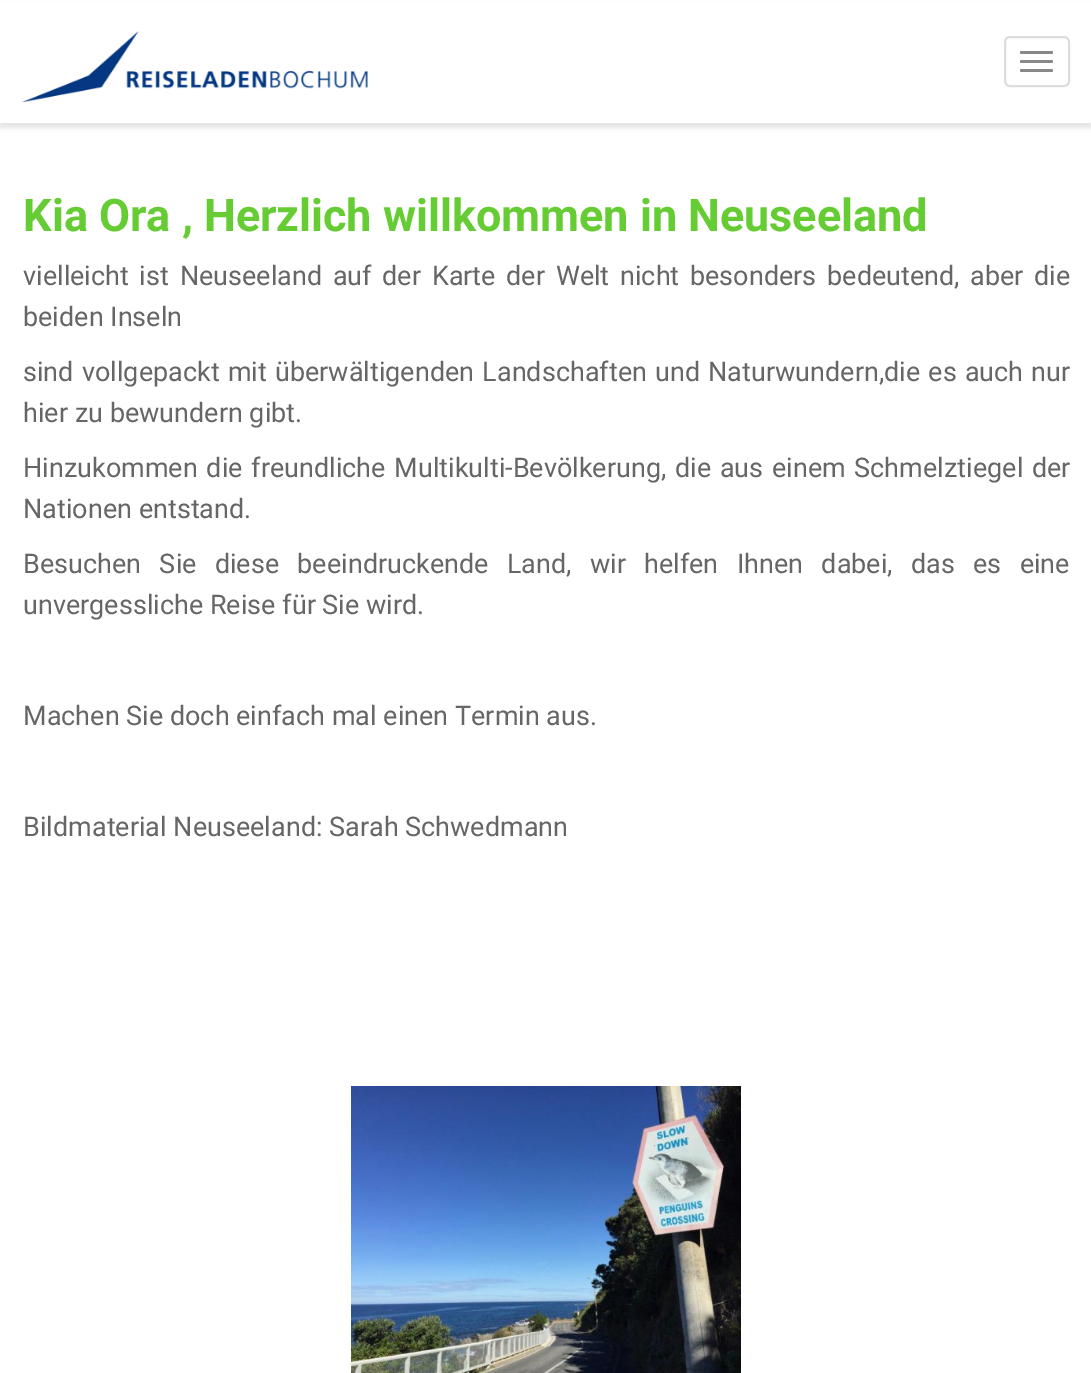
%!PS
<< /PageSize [1091 1373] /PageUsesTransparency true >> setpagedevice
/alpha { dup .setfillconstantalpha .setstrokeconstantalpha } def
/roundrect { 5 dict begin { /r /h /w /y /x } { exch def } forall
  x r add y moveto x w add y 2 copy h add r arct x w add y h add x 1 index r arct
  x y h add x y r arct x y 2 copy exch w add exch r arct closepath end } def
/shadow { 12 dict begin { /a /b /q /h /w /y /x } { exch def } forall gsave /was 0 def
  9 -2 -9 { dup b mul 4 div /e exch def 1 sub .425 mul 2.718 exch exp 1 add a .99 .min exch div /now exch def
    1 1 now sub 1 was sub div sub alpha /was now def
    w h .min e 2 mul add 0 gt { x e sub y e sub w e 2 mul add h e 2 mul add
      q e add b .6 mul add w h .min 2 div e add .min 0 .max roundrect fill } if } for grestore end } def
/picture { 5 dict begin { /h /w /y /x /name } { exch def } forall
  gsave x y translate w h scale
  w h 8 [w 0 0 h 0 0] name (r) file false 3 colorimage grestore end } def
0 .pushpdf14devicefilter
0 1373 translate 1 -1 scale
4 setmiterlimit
1 setgray
0 0 1091 1373 rectfill
0 setgray
0 5 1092 123 0 2 0.1 shadow
1 setgray
0 2 1091 121 rectfill
(img1.rgb) 22 31 346 71 picture
0.867 setgray
2 setlinewidth
1005 37 64 49 5 roundrect stroke
0.533 setgray
1020 51 33 3 1.5 roundrect fill
1020 60 33 3 1.5 roundrect fill
1020 69 33 3 1.5 roundrect fill
/Roboto-Bold [45 0 0 -45 0 0] selectfont
0.4 0.8 0.2 setrgbcolor
23 231 moveto (Kia Ora , Herzlich willkommen in Neuseeland) show
/Roboto-Regular [27 0 0 -27 0 0] selectfont
0.4 setgray
23 285 moveto 4 0 32 (vielleicht ist Neuseeland auf der Karte der Welt nicht besonders bedeutend, aber die) widthshow
23 326 moveto (beiden Inseln) show
23 381 moveto 1.5 0 32 (sind vollgepackt mit überwältigenden Landschaften und Naturwundern,die es auch nur) widthshow
23 422 moveto (hier zu bewundern gibt.) show
23 477 moveto 2 0 32 (Hinzukommen die freundliche Multikulti-Bevölkerung, die aus einem Schmelztiegel der) widthshow
23 518 moveto (Nationen entstand.) show
23 573 moveto 11.6 0 32 (Besuchen Sie diese beeindruckende Land, wir helfen Ihnen dabei, das es eine) widthshow
23 614 moveto (unvergessliche Reise für Sie wird.) show
23 725 moveto (Machen Sie doch einfach mal einen Termin aus.) show
23 836 moveto (Bildmaterial Neuseeland: Sarah Schwedmann) show
(img2.rgb) 351 1086 390 287 picture
.poppdf14devicefilter showpage
